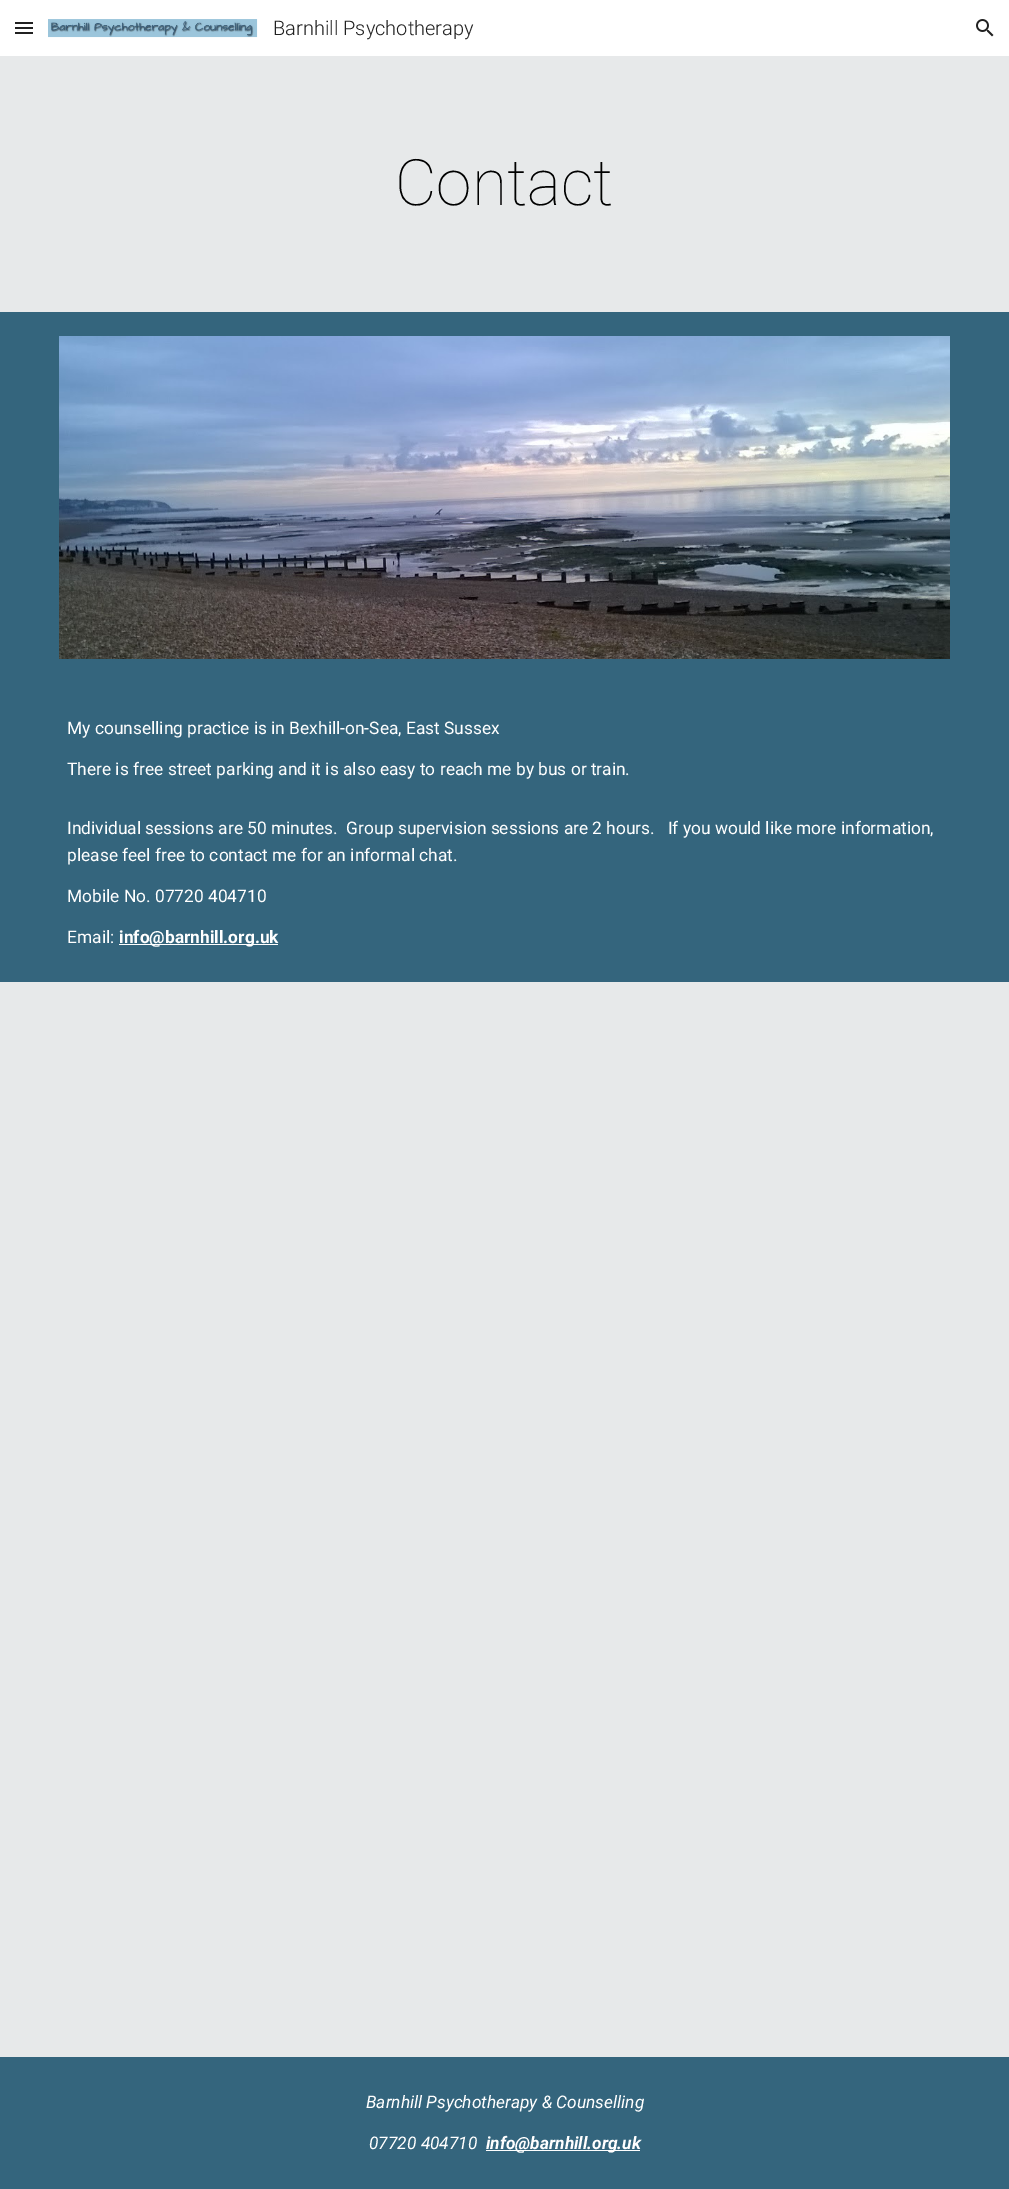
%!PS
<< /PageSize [1009 2189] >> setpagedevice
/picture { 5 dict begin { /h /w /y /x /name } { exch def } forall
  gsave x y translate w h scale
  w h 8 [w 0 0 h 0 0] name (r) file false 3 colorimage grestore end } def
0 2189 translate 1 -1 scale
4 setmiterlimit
0.906 0.914 0.918 setrgbcolor
0 0 1009 2189 rectfill
1 setgray
0 0 1009 56 rectfill
0.129 setgray
15 22 18 2 rectfill
15 27 18 2 rectfill
15 32 18 2 rectfill
(img1.rgb) 48 19 210 19 picture
/Roboto-Light [20 0 0 -20 0 0] selectfont
273 35 moveto (Barnhill Psychotherapy) show
(img2.rgb) 976 19 18 18 picture
/Roboto-Thin [64 0 0 -64 0 0] selectfont
0 setgray
395 205 moveto (Contact) show
0.204 0.396 0.49 setrgbcolor
0 312 1009 670 rectfill
(img3.rgb) 59 336 891 323 picture
/Roboto-Regular [17.35 0 0 -17.35 0 0] selectfont
1 setgray
67 734 moveto (My counselling practice is in Bexhill-on-Sea, East Sussex) show
67 775 moveto (There is free street parking and it is also easy to reach me by bus or train.) show
67 834 moveto (Individual sessions are 50 minutes.  Group supervision sessions are 2 hours.   If you would like more information,) show
67 861 moveto (please feel free to contact me for an informal chat.) show
67 902 moveto (Mobile No. 07720 404710) show
67 943 moveto (Email:) show
119 944 159 1 rectfill
/Roboto-Bold [17.35 0 0 -17.35 0 0] selectfont
119 943 moveto (info@barnhill.org.uk) show
0.204 0.396 0.49 setrgbcolor
0 2057 1009 132 rectfill
/Roboto-Italic [17.35 0 0 -17.35 0 0] selectfont
1 setgray
366 2108 moveto (Barnhill Psychotherapy & Counselling) show
369 2149 moveto (07720 404710) show
486 2150 154 1 rectfill
/Roboto-BoldItalic [17.35 0 0 -17.35 0 0] selectfont
486 2149 moveto (info@barnhill.org.uk) show
showpage
